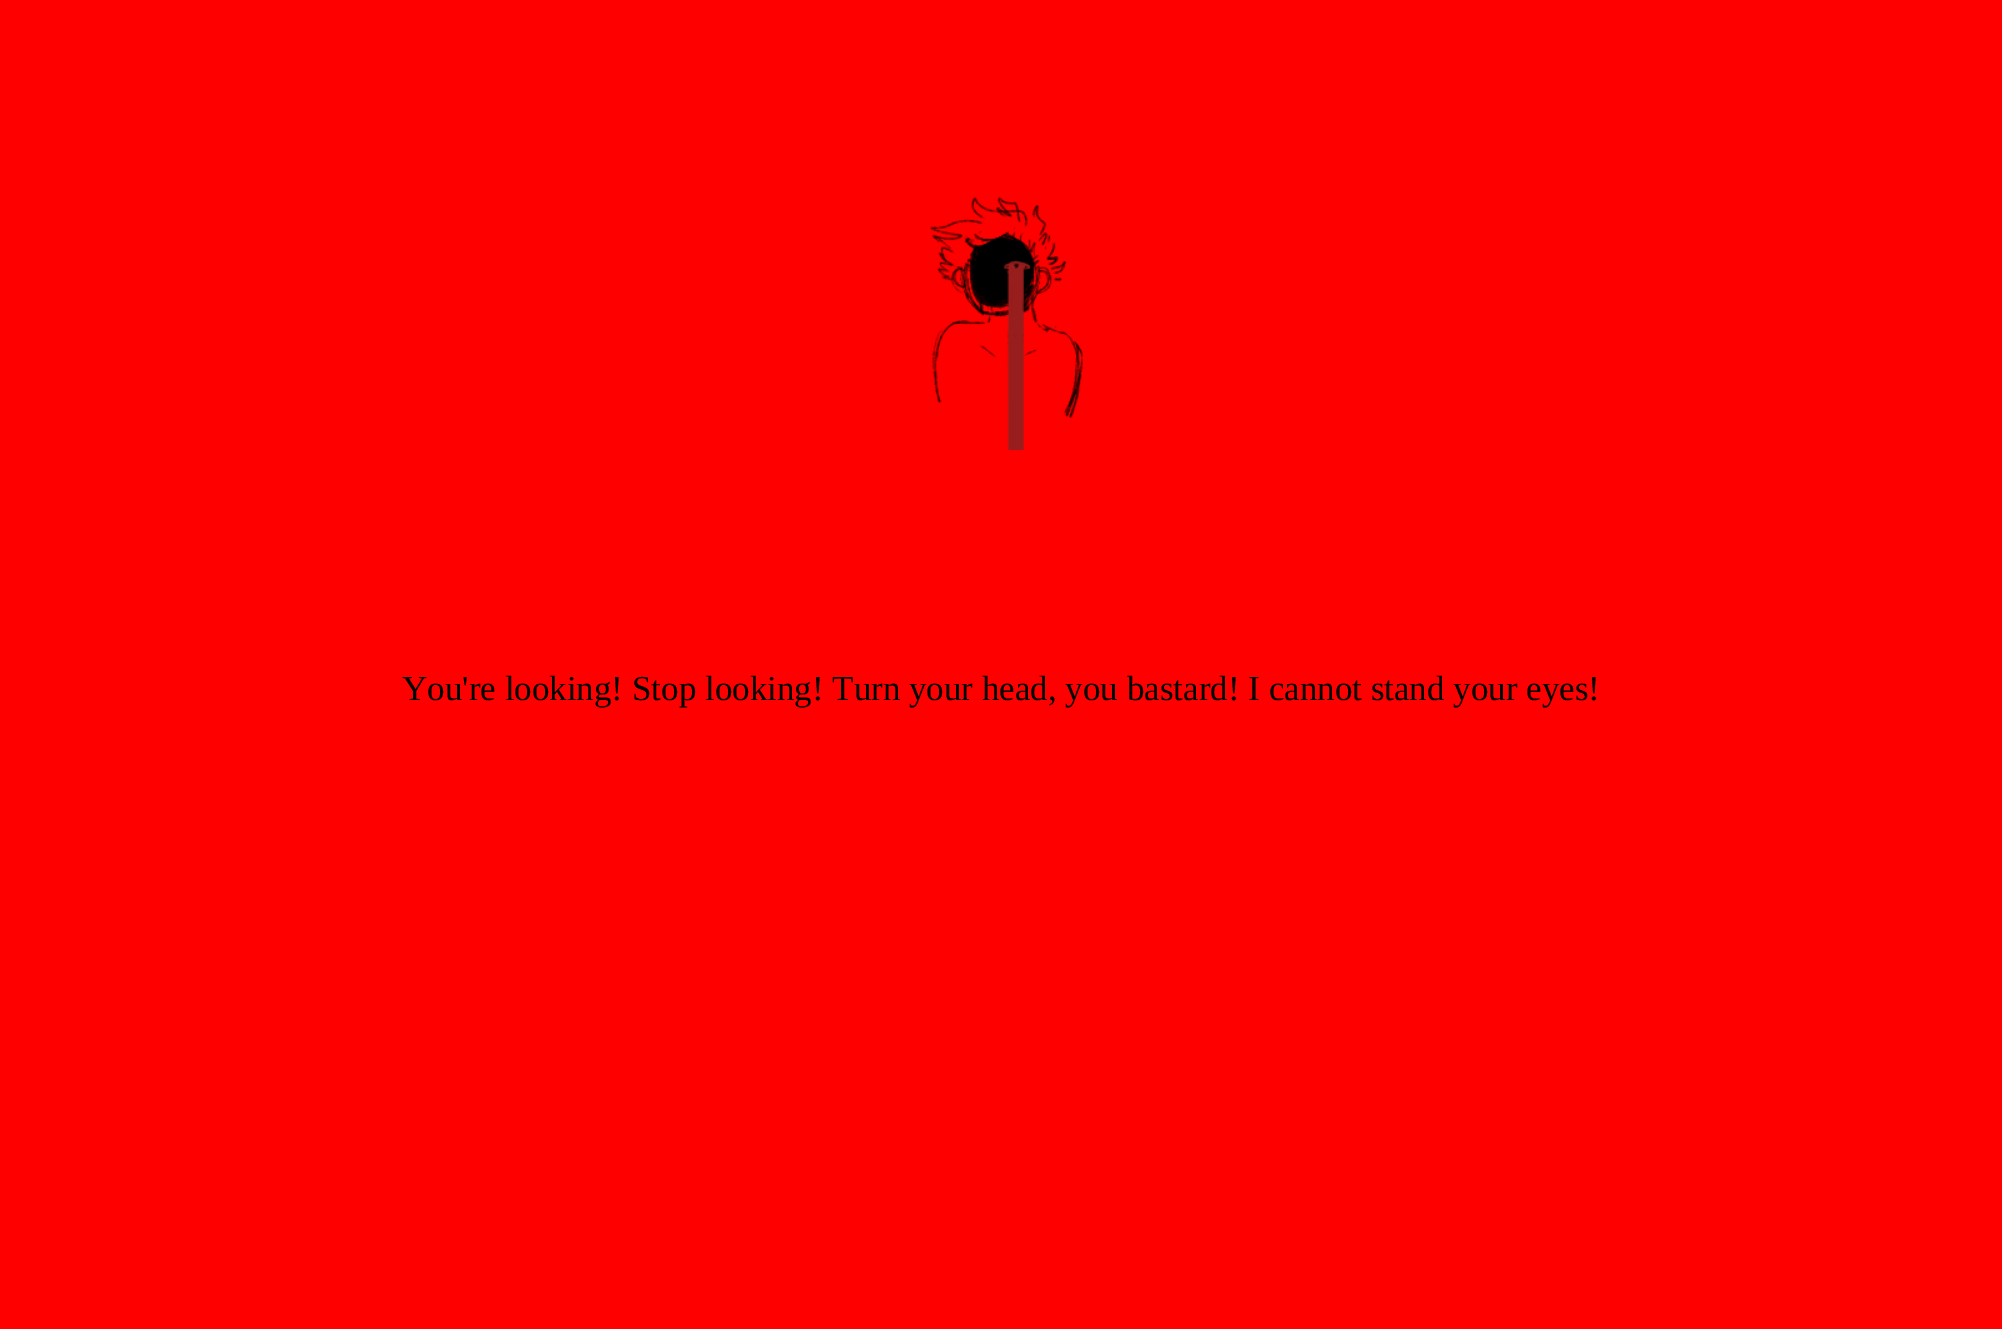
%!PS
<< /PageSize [2002 1329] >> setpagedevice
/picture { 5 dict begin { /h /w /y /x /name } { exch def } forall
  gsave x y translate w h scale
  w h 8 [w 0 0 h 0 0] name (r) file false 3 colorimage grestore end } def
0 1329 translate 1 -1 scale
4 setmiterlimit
1 0 0 setrgbcolor
0 0 2002 1329 rectfill
(img1.rgb) 930 196 153 255 picture
/LiberationSerif-Regular [35 0 0 -35 0 0] selectfont
0 setgray
402 700 moveto (You're looking! Stop looking! Turn your head, you bastard! I cannot stand your eyes!) show
showpage
